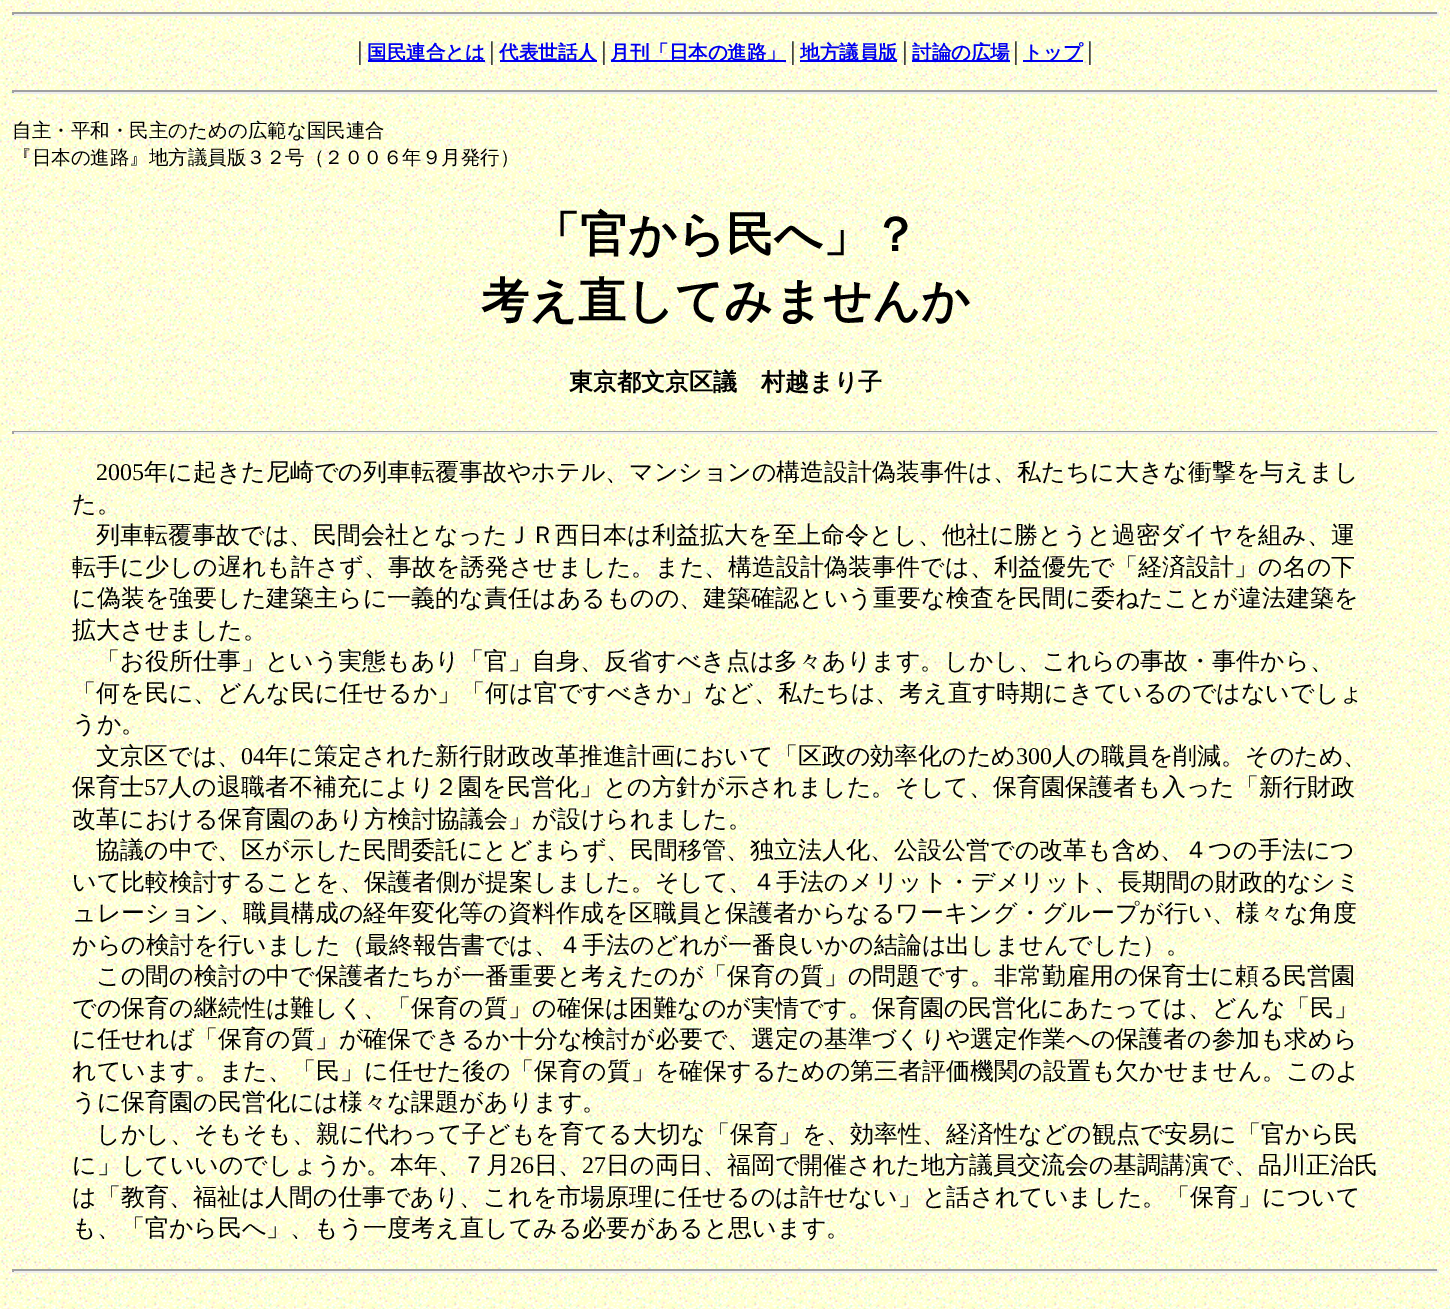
%!PS
<< /PageSize [1450 1309] >> setpagedevice
/picture { 5 dict begin { /h /w /y /x /name } { exch def } forall
  gsave x y translate w h scale
  w h 8 [w 0 0 h 0 0] name (r) file false 3 colorimage grestore end } def
0 1309 translate 1 -1 scale
4 setmiterlimit
1 setgray
0 0 1450 1309 rectfill
(img1.rgb) 0 0 1450 1309 picture
0.624 setgray
12 12 1427 2 rectfill
0.933 setgray
1437 12 2 3 rectfill
12 14 1427 2 rectfill
0.624 setgray
12 12 2 3 rectfill
/LiberationSerif-Bold [19.5 0 0 -19.5 0 0] selectfont
0 setgray
353 59 moveto (│) show
0 0 0.933 setrgbcolor
368 60 117 2 rectfill
/WenQuanYiZenHei-Bold [19.5 0 0 -19.5 0 0] selectfont
367 59 moveto (国民連合とは) show
/LiberationSerif-Bold [19.5 0 0 -19.5 0 0] selectfont
0 setgray
485 59 moveto (│) show
0 0 0.933 setrgbcolor
500 60 97 2 rectfill
/WenQuanYiZenHei-Bold [19.5 0 0 -19.5 0 0] selectfont
499 59 moveto (代表世話人) show
/LiberationSerif-Bold [19.5 0 0 -19.5 0 0] selectfont
0 setgray
597 59 moveto (│) show
0 0 0.933 setrgbcolor
611 60 175 2 rectfill
/WenQuanYiZenHei-Bold [19.5 0 0 -19.5 0 0] selectfont
610 59 moveto (月刊「日本の進路」) show
/LiberationSerif-Bold [19.5 0 0 -19.5 0 0] selectfont
0 setgray
786 59 moveto (│) show
0 0 0.933 setrgbcolor
800 60 97 2 rectfill
/WenQuanYiZenHei-Bold [19.5 0 0 -19.5 0 0] selectfont
800 59 moveto (地方議員版) show
/LiberationSerif-Bold [19.5 0 0 -19.5 0 0] selectfont
0 setgray
898 59 moveto (│) show
0 0 0.933 setrgbcolor
912 60 98 2 rectfill
/WenQuanYiZenHei-Bold [19.5 0 0 -19.5 0 0] selectfont
912 59 moveto (討論の広場) show
/LiberationSerif-Bold [19.5 0 0 -19.5 0 0] selectfont
0 setgray
1009 59 moveto (│) show
0 0 0.933 setrgbcolor
1023 60 60 2 rectfill
/WenQuanYiZenHei-Bold [19.5 0 0 -19.5 0 0] selectfont
1023 59 moveto (トップ) show
/LiberationSerif-Bold [19.5 0 0 -19.5 0 0] selectfont
0 setgray
1083 59 moveto (│) show
0.624 setgray
12 90 1427 2 rectfill
0.933 setgray
1437 90 2 3 rectfill
12 92 1427 2 rectfill
0.624 setgray
12 90 2 3 rectfill
/WenQuanYiZenHei-Medium [19.5 0 0 -19.5 0 0] selectfont
0 setgray
12 137 moveto (自主・平和・民主のための広範な国民連合) show
12 164 moveto (『日本の進路』地方議員版３２号（２００６年９月発行）) show
/WenQuanYiZenHei-Bold [48 0 0 -48 0 0] selectfont
532 251 moveto (「官から民へ」？) show
481 317 moveto (考え直してみませんか) show
/WenQuanYiZenHei-Bold [24 0 0 -24 0 0] selectfont
569 390 moveto (東京都文京区議　村越まり子) show
0.624 setgray
12 431 1427 1 rectfill
0.933 setgray
1437 431 2 3 rectfill
12 432 1427 2 rectfill
0.624 setgray
12 431 2 3 rectfill
/LiberationSerif-Regular [24 0 0 -24 0 0] selectfont
0 setgray
96 480 moveto (2005) show
/WenQuanYiZenHei-Medium [24 0 0 -24 0 0] selectfont
144 480 moveto (年に起きた尼崎での列車転覆事故やホテル、マンションの構造設計偽装事件は、私たちに大きな衝撃を与えまし) show
72 512 moveto (た。) show
96 543 moveto (列車転覆事故では、民間会社となったＪＲ西日本は利益拡大を至上命令とし、他社に勝とうと過密ダイヤを組み、運) show
72 575 moveto (転手に少しの遅れも許さず、事故を誘発させました。また、構造設計偽装事件では、利益優先で「経済設計」の名の下) show
72 606 moveto (に偽装を強要した建築主らに一義的な責任はあるものの、建築確認という重要な検査を民間に委ねたことが違法建築を) show
72 638 moveto (拡大させました。) show
96 669 moveto (「お役所仕事」という実態もあり「官」自身、反省すべき点は多々あります。しかし、これらの事故・事件から、) show
72 701 moveto (「何を民に、どんな民に任せるか」「何は官ですべきか」など、私たちは、考え直す時期にきているのではないでしょ) show
72 732 moveto (うか。) show
96 764 moveto (文京区では、) show
/LiberationSerif-Regular [24 0 0 -24 0 0] selectfont
241 764 moveto (04) show
/WenQuanYiZenHei-Medium [24 0 0 -24 0 0] selectfont
265 764 moveto (年に策定された新行財政改革推進計画において「区政の効率化のため) show
/LiberationSerif-Regular [24 0 0 -24 0 0] selectfont
1016 764 moveto (300) show
/WenQuanYiZenHei-Medium [24 0 0 -24 0 0] selectfont
1052 764 moveto (人の職員を削減。そのため、) show
72 795 moveto (保育士) show
/LiberationSerif-Regular [24 0 0 -24 0 0] selectfont
144 795 moveto (57) show
/WenQuanYiZenHei-Medium [24 0 0 -24 0 0] selectfont
168 795 moveto (人の退職者不補充により２園を民営化」との方針が示されました。そして、保育園保護者も入った「新行財政) show
72 827 moveto (改革における保育園のあり方検討協議会」が設けられました。) show
96 858 moveto (協議の中で、区が示した民間委託にとどまらず、民間移管、独立法人化、公設公営での改革も含め、４つの手法につ) show
72 890 moveto (いて比較検討することを、保護者側が提案しました。そして、４手法のメリット・デメリット、長期間の財政的なシミ) show
72 921 moveto (ュレーション、職員構成の経年変化等の資料作成を区職員と保護者からなるワーキング・グループが行い、様々な角度) show
72 953 moveto (からの検討を行いました（最終報告書では、４手法のどれが一番良いかの結論は出しませんでした）。) show
96 984 moveto (この間の検討の中で保護者たちが一番重要と考えたのが「保育の質」の問題です。非常勤雇用の保育士に頼る民営園) show
72 1016 moveto (での保育の継続性は難しく、「保育の質」の確保は困難なのが実情です。保育園の民営化にあたっては、どんな「民」) show
72 1047 moveto (に任せれば「保育の質」が確保できるか十分な検討が必要で、選定の基準づくりや選定作業への保護者の参加も求めら) show
72 1079 moveto (れています。また、「民」に任せた後の「保育の質」を確保するための第三者評価機関の設置も欠かせません。このよ) show
72 1110 moveto (うに保育園の民営化には様々な課題があります。) show
96 1142 moveto (しかし、そもそも、親に代わって子どもを育てる大切な「保育」を、効率性、経済性などの観点で安易に「官から民) show
72 1173 moveto (に」していいのでしょうか。本年、７月) show
/LiberationSerif-Regular [24 0 0 -24 0 0] selectfont
510 1173 moveto (26) show
/WenQuanYiZenHei-Medium [24 0 0 -24 0 0] selectfont
534 1173 moveto (日、) show
/LiberationSerif-Regular [24 0 0 -24 0 0] selectfont
582 1173 moveto (27) show
/WenQuanYiZenHei-Medium [24 0 0 -24 0 0] selectfont
606 1173 moveto (日の両日、福岡で開催された地方議員交流会の基調講演で、品川正治氏) show
72 1205 moveto (は「教育、福祉は人間の仕事であり、これを市場原理に任せるのは許せない」と話されていました。「保育」について) show
72 1236 moveto (も、「官から民へ」、もう一度考え直してみる必要があると思います。) show
0.624 setgray
12 1269 1427 2 rectfill
0.933 setgray
1437 1269 2 3 rectfill
12 1271 1427 2 rectfill
0.624 setgray
12 1269 2 3 rectfill
showpage
